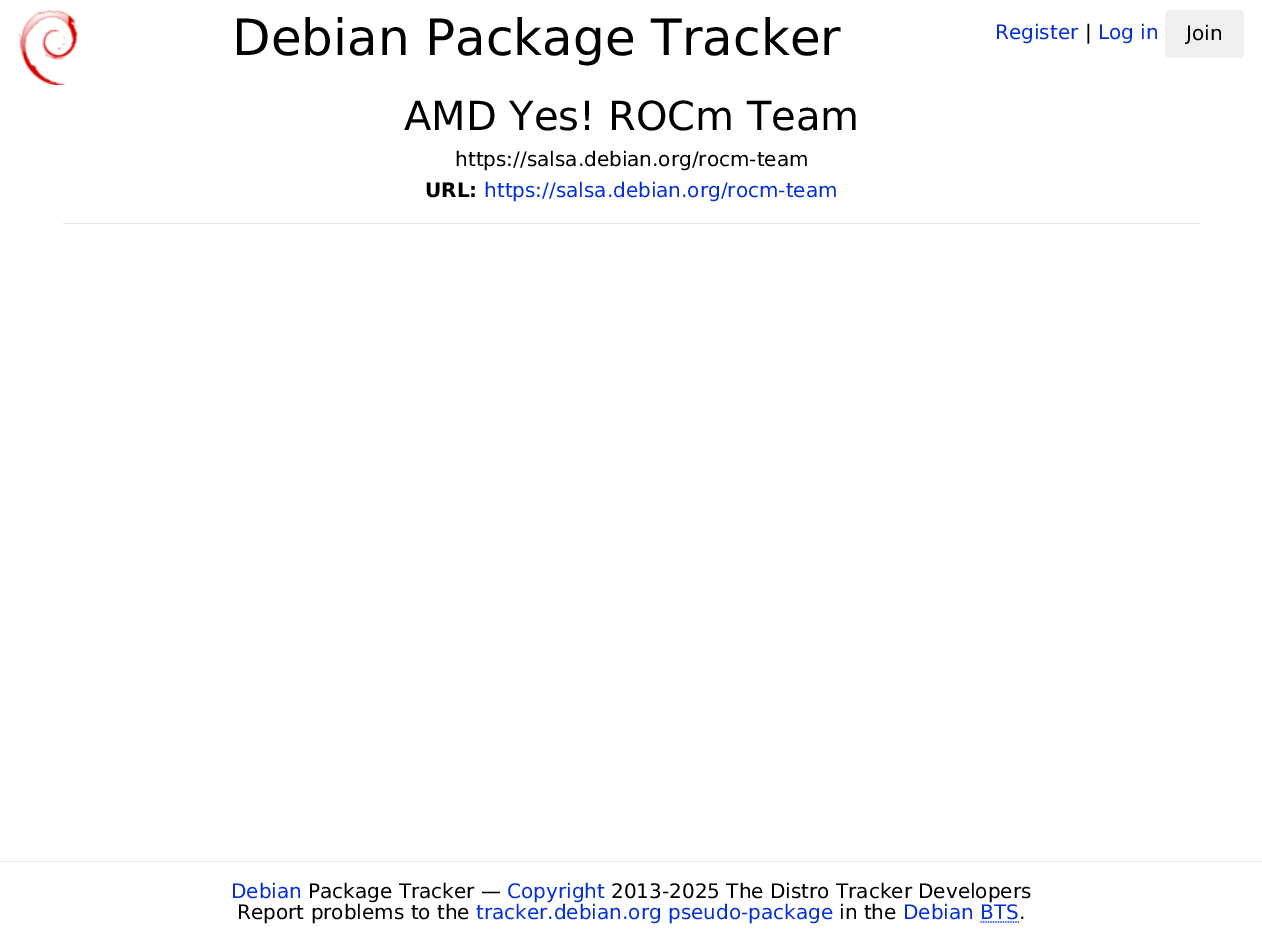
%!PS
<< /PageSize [1262 932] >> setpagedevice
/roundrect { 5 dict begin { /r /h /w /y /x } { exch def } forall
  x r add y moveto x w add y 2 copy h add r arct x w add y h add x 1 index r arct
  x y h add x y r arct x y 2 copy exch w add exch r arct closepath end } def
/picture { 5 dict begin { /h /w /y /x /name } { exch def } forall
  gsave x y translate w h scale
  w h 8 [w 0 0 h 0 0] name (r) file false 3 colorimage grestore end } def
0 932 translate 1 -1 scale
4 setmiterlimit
1 setgray
0 0 1262 932 rectfill
(img1.rgb) 18 10 60 75 picture
/DejaVuSans-Regular [50 0 0 -50 0 0] selectfont
0 setgray
232 55 moveto (Debian Package Tracker) show
/DejaVuSans-Regular [20 0 0 -20 0 0] selectfont
0.02 0.188 0.843 setrgbcolor
995 39 moveto (Register) show
0 setgray
1085 39 moveto (|) show
0.02 0.188 0.843 setrgbcolor
1098 39 moveto (Log in) show
0.937 setgray
1165 10 79 48 5 roundrect fill
0 setgray
1186 40 moveto (Join) show
/DejaVuSans-Regular [40 0 0 -40 0 0] selectfont
404 130 moveto (AMD Yes! ROCm Team) show
/DejaVuSans-Regular [20 0 0 -20 0 0] selectfont
455 166 moveto (https://salsa.debian.org/rocm-team) show
/DejaVuSans-Bold [20 0 0 -20 0 0] selectfont
425 197 moveto (URL:) show
/DejaVuSans-Regular [20 0 0 -20 0 0] selectfont
0.02 0.188 0.843 setrgbcolor
484 197 moveto (https://salsa.debian.org/rocm-team) show
0.902 setgray
63 223 1137 1 rectfill
0 861 1262 1 rectfill
0.02 0.188 0.843 setrgbcolor
231 898 moveto (Debian) show
0 setgray
308 898 moveto (Package Tracker —) show
0.02 0.188 0.843 setrgbcolor
507 898 moveto (Copyright) show
0 setgray
611 898 moveto (2013-2025 The Distro Tracker Developers) show
237 919 moveto (Report problems to the) show
0.02 0.188 0.843 setrgbcolor
476 919 moveto (tracker.debian.org pseudo-package) show
0 setgray
839 919 moveto (in the) show
0.02 0.188 0.843 setrgbcolor
903 919 moveto (Debian BTS) show
1.2 setlinewidth
[1.25 1.25] 0 setdash
newpath 980.5 922 moveto 1019 922 lineto stroke
0 setgray
1019 919 moveto (.) show
showpage
